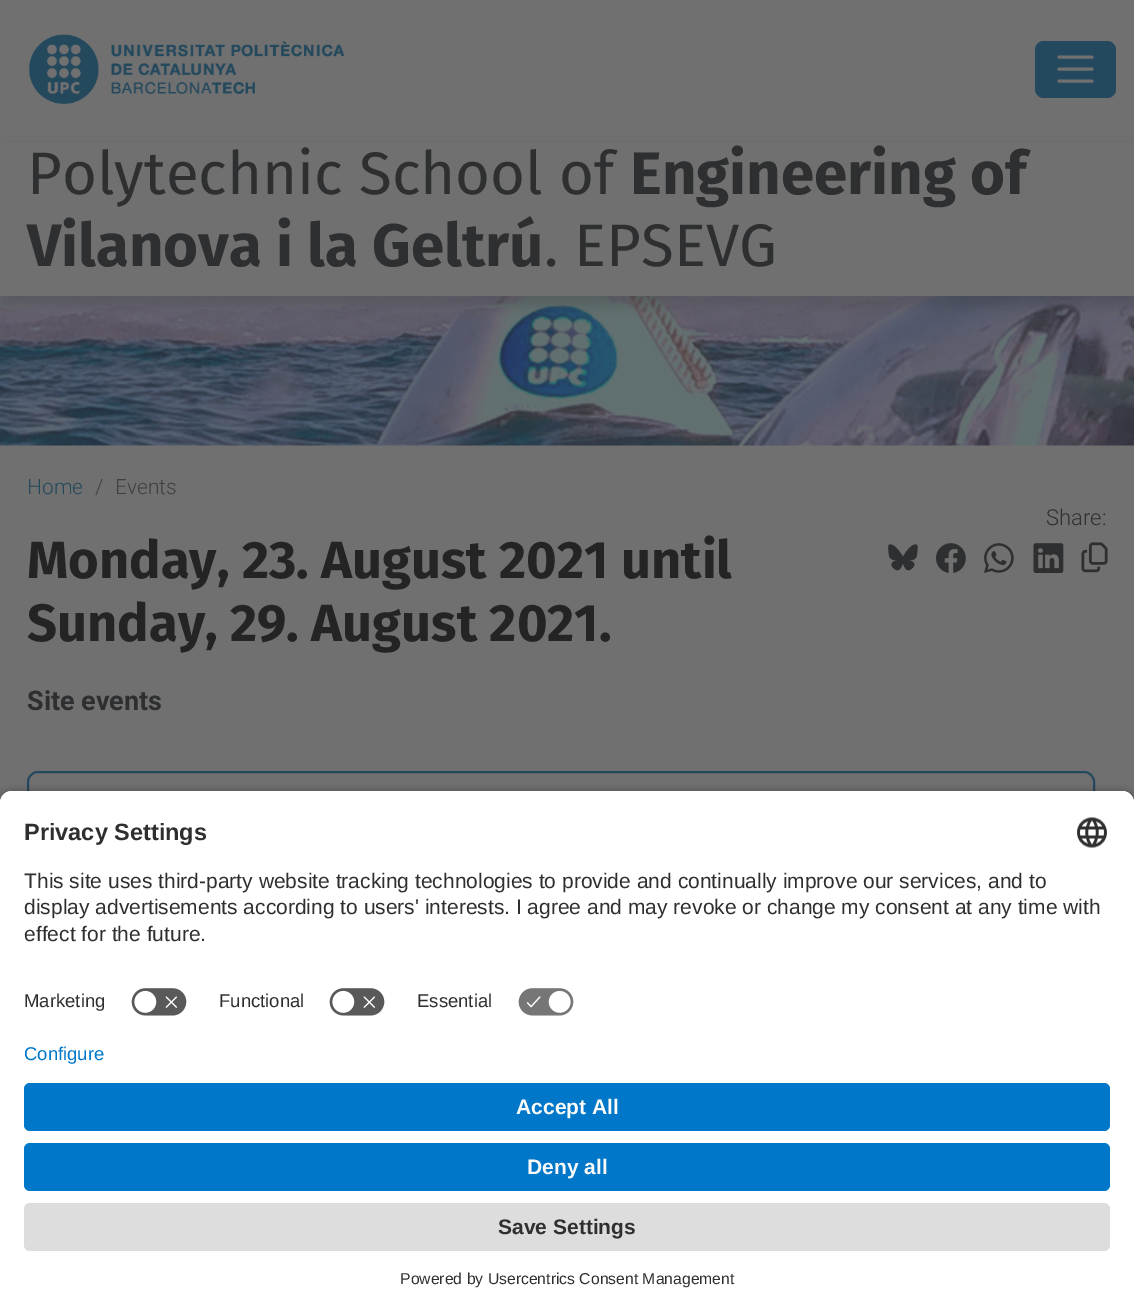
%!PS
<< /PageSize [1134 1310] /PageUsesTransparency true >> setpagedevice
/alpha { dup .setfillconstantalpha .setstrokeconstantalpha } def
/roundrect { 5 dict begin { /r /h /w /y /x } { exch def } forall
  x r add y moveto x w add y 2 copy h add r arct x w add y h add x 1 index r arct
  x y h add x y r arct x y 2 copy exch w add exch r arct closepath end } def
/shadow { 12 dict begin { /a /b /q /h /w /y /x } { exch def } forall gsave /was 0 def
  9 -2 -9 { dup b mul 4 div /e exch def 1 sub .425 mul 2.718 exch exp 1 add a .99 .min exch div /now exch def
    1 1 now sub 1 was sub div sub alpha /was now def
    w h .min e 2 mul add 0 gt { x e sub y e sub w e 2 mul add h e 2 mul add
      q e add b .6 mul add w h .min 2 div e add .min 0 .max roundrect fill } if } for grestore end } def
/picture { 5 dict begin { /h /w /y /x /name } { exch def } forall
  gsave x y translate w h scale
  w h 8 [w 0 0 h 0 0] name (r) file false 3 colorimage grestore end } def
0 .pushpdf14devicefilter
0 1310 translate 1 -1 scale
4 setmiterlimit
0.439 setgray
0 0 1134 1310 rectfill
(img1.rgb) 29 34 316 70 picture
0.141 0.286 0.369 setrgbcolor
1035 41 81 57 9 roundrect fill
0.439 setgray
3 setlinewidth
1 setlinecap
newpath 1059 57 moveto 1092 57 lineto 1059 69 moveto 1092 69 lineto 1059 81 moveto 1092 81 lineto stroke
(img2.rgb) 0 296 1134 150 picture
0.141 setgray
0 149 1134 157 0 6 0.2 shadow
0.439 setgray
0 143 1134 153 rectfill
/FiraSans-Regular [60 0 0 -60 0 0] selectfont
0.18 0.184 0.188 setrgbcolor
27 194 moveto (Polytechnic School of) show
/FiraSans-Bold [60 0 0 -60 0 0] selectfont
630 194 moveto (Engineering of) show
27 266 moveto (Vilanova i la Geltrú) show
/FiraSans-Regular [60 0 0 -60 0 0] selectfont
544 266 moveto (. EPSEVG) show
/Roboto-Light [21 0 0 -21 0 0] selectfont
0.141 0.286 0.349 setrgbcolor
27 494 moveto (Home) show
0.243 0.247 0.251 setrgbcolor
95 494 moveto (/) show
115 494 moveto (Events) show
/Roboto-Light [22 0 0 -22 0 0] selectfont
0.18 0.184 0.188 setrgbcolor
1046 525 moveto (Share:) show
(img3.rgb) 888 544 30 27 picture
(img4.rgb) 936 543 30 30 picture
(img5.rgb) 984 543 30 30 picture
(img6.rgb) 1033 543 31 30 picture
(img7.rgb) 1081 542 27 31 picture
/FiraSans-Bold [52.5 0 0 -52.5 0 0] selectfont
0.141 setgray
27 578 moveto (Monday, 23. August 2021 until) show
27 641 moveto (Sunday, 29. August 2021.) show
/Roboto-Bold [27 0 0 -27 0 0] selectfont
0.18 0.184 0.188 setrgbcolor
27 710 moveto (Site events) show
0.141 0.286 0.369 setrgbcolor
2 setlinewidth
0 setlinecap
28 772 1066 45 10 roundrect stroke
0 setgray
0 795 1134 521 12 5 0.8 shadow
1 setgray
newpath 12 791 moveto 1122 791 lineto 1128.5 791 1134 796.5 1134 803 curveto 1134 1044 lineto 0 1044 lineto 0 803 lineto 0 796.5 5.5 791 12 791 curveto closepath fill
newpath 12 791 moveto 1122 791 lineto 1128.5 791 1134 796.5 1134 803 curveto 1134 978 lineto 0 978 lineto 0 803 lineto 0 796.5 5.5 791 12 791 curveto closepath fill
/LiberationSans-Bold [23.5 0 0 -23.5 0 0] selectfont
0.18 0.184 0.188 setrgbcolor
24 840 moveto (Privacy Settings) show
(img8.rgb) 1077 817 30 31 picture
/LiberationSans-Regular [21 0 0 -21 0 0] selectfont
24 888 moveto (This site uses third-party website tracking technologies to provide and continually improve our services, and to) show
24 914 moveto (display advertisements according to users' interests. I agree and may revoke or change my consent at any time with) show
24 941 moveto (effect for the future.) show
/LiberationSans-Regular [18.5 0 0 -18.5 0 0] selectfont
24 1007 moveto (Marketing) show
(img9.rgb) 131 988 56 28 picture
219 1007 moveto (Functional) show
(img9.rgb) 329 988 56 28 picture
417 1007 moveto (Essential) show
(img10.rgb) 518 988 56 28 picture
1 setgray
0 1044 1134 266 rectfill
0 0.467 0.784 setrgbcolor
24 1060 moveto (Configure) show
24 1083 1086 48 6 roundrect fill
/LiberationSans-Bold [21 0 0 -21 0 0] selectfont
0.98 setgray
516 1114 moveto (Accept All) show
0 0.467 0.784 setrgbcolor
24 1143 1086 48 6 roundrect fill
0.98 setgray
527 1174 moveto (Deny all) show
0.867 setgray
24 1203 1086 48 6 roundrect fill
0.18 0.184 0.188 setrgbcolor
498 1234 moveto (Save Settings) show
/LiberationSans-Regular [15.75 0 0 -15.75 0 0] selectfont
400 1284 moveto (Powered by Usercentrics Consent Management) show
.poppdf14devicefilter showpage
